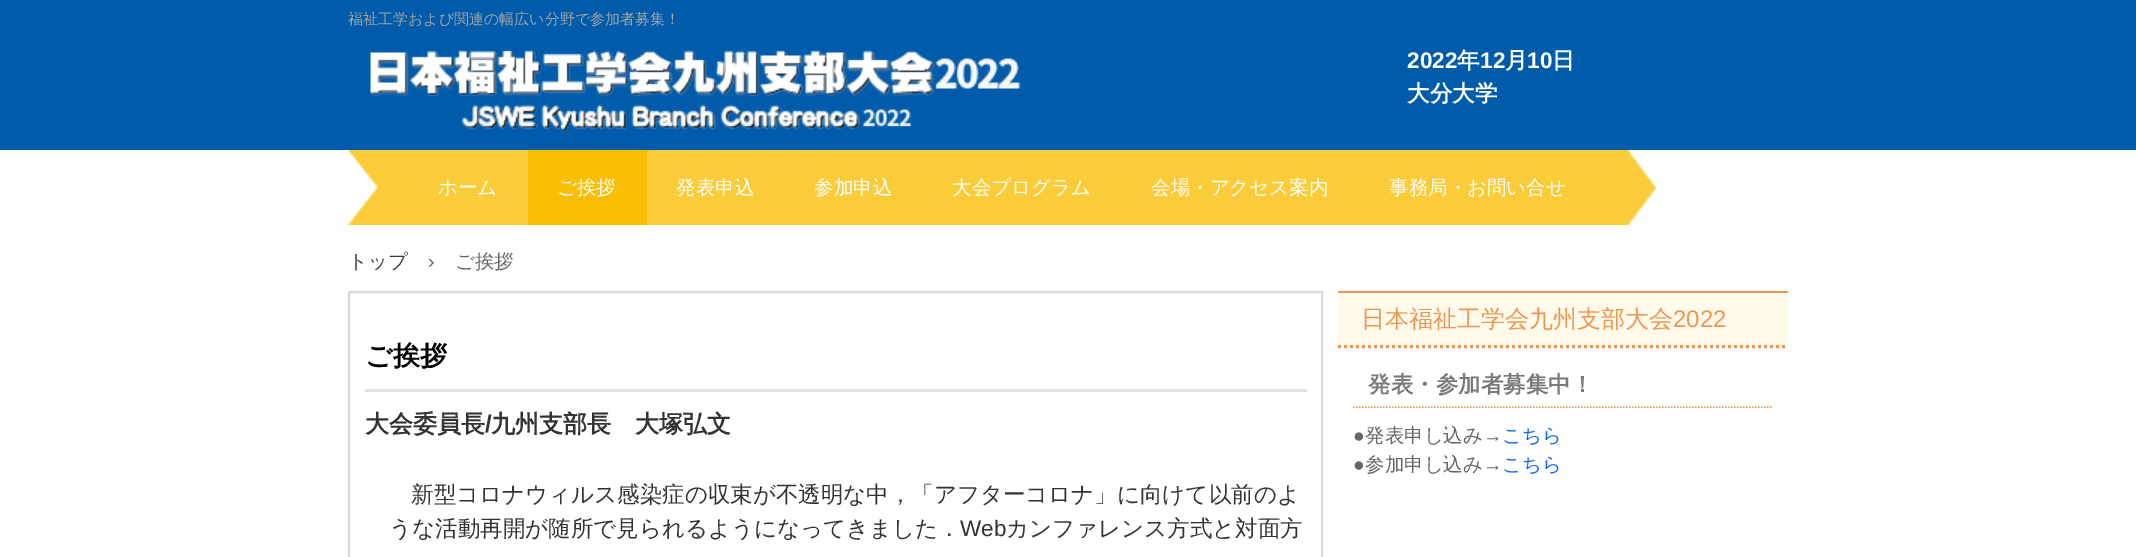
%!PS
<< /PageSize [2136 557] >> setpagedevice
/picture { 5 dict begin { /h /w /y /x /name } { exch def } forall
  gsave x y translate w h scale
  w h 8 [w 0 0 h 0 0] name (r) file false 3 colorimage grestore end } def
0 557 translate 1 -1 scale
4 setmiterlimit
1 setgray
0 0 2136 557 rectfill
0 0.357 0.667 setrgbcolor
0 0 2136 150 rectfill
/WenQuanYiZenHei-Medium [15 0 0 -15 0 0] selectfont
0.643 setgray
348 24 moveto (福祉工学および関連の幅広い分野で参加者募集！) show
(img1.rgb) 370 50 651 81 picture
/LiberationSans-Bold [22.5 0 0 -22.5 0 0] selectfont
1 setgray
1407 68 moveto (2022) show
/WenQuanYiZenHei-Bold [22.5 0 0 -22.5 0 0] selectfont
1457 68 moveto (年) show
/LiberationSans-Bold [22.5 0 0 -22.5 0 0] selectfont
1480 68 moveto (12) show
/WenQuanYiZenHei-Bold [22.5 0 0 -22.5 0 0] selectfont
1505 68 moveto (月) show
/LiberationSans-Bold [22.5 0 0 -22.5 0 0] selectfont
1527 68 moveto (10) show
/WenQuanYiZenHei-Bold [22.5 0 0 -22.5 0 0] selectfont
1552 68 moveto (日) show
1407 101 moveto (大分大学) show
(img2.rgb) 348 150 60 75 picture
0.984 0.8 0.224 setrgbcolor
408 150 120 75 rectfill
/WenQuanYiZenHei-Medium [19.5 0 0 -19.5 0 0] selectfont
1 setgray
438 194 moveto (ホーム) show
0.976 0.745 0 setrgbcolor
528 150 119 75 rectfill
1 setgray
557 194 moveto (ご挨拶) show
0.984 0.8 0.224 setrgbcolor
647 150 949 75 rectfill
1 setgray
676 194 moveto (発表申込) show
814 194 moveto (参加申込) show
952 194 moveto (大会プログラム) show
1151 194 moveto (会場・アクセス案内) show
(img3.rgb) 1596 150 60 75 picture
1389 194 moveto (事務局・お問い合せ) show
0.235 setgray
348 268 moveto (トップ) show
/LiberationSans-Regular [19.5 0 0 -19.5 0 0] selectfont
0.4 setgray
428 268 moveto (›) show
/WenQuanYiZenHei-Medium [19.5 0 0 -19.5 0 0] selectfont
455 268 moveto (ご挨拶) show
0.851 setgray
2 setlinewidth
349 292 973 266 rectstroke
0.886 setgray
365 389 942 3 rectfill
/WenQuanYiZenHei-Bold [27 0 0 -27 0 0] selectfont
0 setgray
365 365 moveto (ご挨拶) show
/WenQuanYiZenHei-Bold [24 0 0 -24 0 0] selectfont
0.2 setgray
365 432 moveto (大会委員長) show
/LiberationSans-Bold [24 0 0 -24 0 0] selectfont
485 432 moveto (/) show
/WenQuanYiZenHei-Bold [24 0 0 -24 0 0] selectfont
491 432 moveto (九州支部長　大塚弘文) show
/WenQuanYiZenHei-Medium [22.5 0 0 -22.5 0 0] selectfont
411 502 moveto (新型コロナウィルス感染症の収束が不透明な中，「アフターコロナ」に向けて以前のよ) show
389 536 moveto (うな活動再開が随所で見られるようになってきました．) show
/LiberationSans-Regular [22.5 0 0 -22.5 0 0] selectfont
960 536 moveto (Web) show
/WenQuanYiZenHei-Medium [22.5 0 0 -22.5 0 0] selectfont
1006 536 moveto (カンファレンス方式と対面方) show
1 0.98 0.914 setrgbcolor
1338 293 450 55 rectfill
0.941 0.588 0.329 setrgbcolor
1338 291 450 2 rectfill
3 setlinewidth
[3 3] 0 setdash
newpath 1338 346.5 moveto 1788 346.5 lineto stroke
/WenQuanYiZenHei-Medium [24 0 0 -24 0 0] selectfont
1361 327 moveto (日本福祉工学会九州支部大会) show
/LiberationSans-Regular [24 0 0 -24 0 0] selectfont
1673 327 moveto (2022) show
1.5 setlinewidth
[1.5 1.5] 0 setdash
newpath 1353 407 moveto 1773 407 lineto stroke
/WenQuanYiZenHei-Bold [22.5 0 0 -22.5 0 0] selectfont
0.478 setgray
1368 392 moveto (発表・参加者募集中！) show
/LiberationSans-Regular [19.5 0 0 -19.5 0 0] selectfont
0.4 setgray
1353 442 moveto (●) show
/WenQuanYiZenHei-Medium [19.5 0 0 -19.5 0 0] selectfont
1365 442 moveto (発表申し込み) show
/LiberationSans-Regular [19.5 0 0 -19.5 0 0] selectfont
1483 442 moveto (→) show
/WenQuanYiZenHei-Medium [19.5 0 0 -19.5 0 0] selectfont
0.051 0.408 0.949 setrgbcolor
1502 442 moveto (こちら) show
/LiberationSans-Regular [19.5 0 0 -19.5 0 0] selectfont
0.4 setgray
1353 471 moveto (●) show
/WenQuanYiZenHei-Medium [19.5 0 0 -19.5 0 0] selectfont
1365 471 moveto (参加申し込み) show
/LiberationSans-Regular [19.5 0 0 -19.5 0 0] selectfont
1483 471 moveto (→) show
/WenQuanYiZenHei-Medium [19.5 0 0 -19.5 0 0] selectfont
0.051 0.408 0.949 setrgbcolor
1502 471 moveto (こちら) show
showpage
